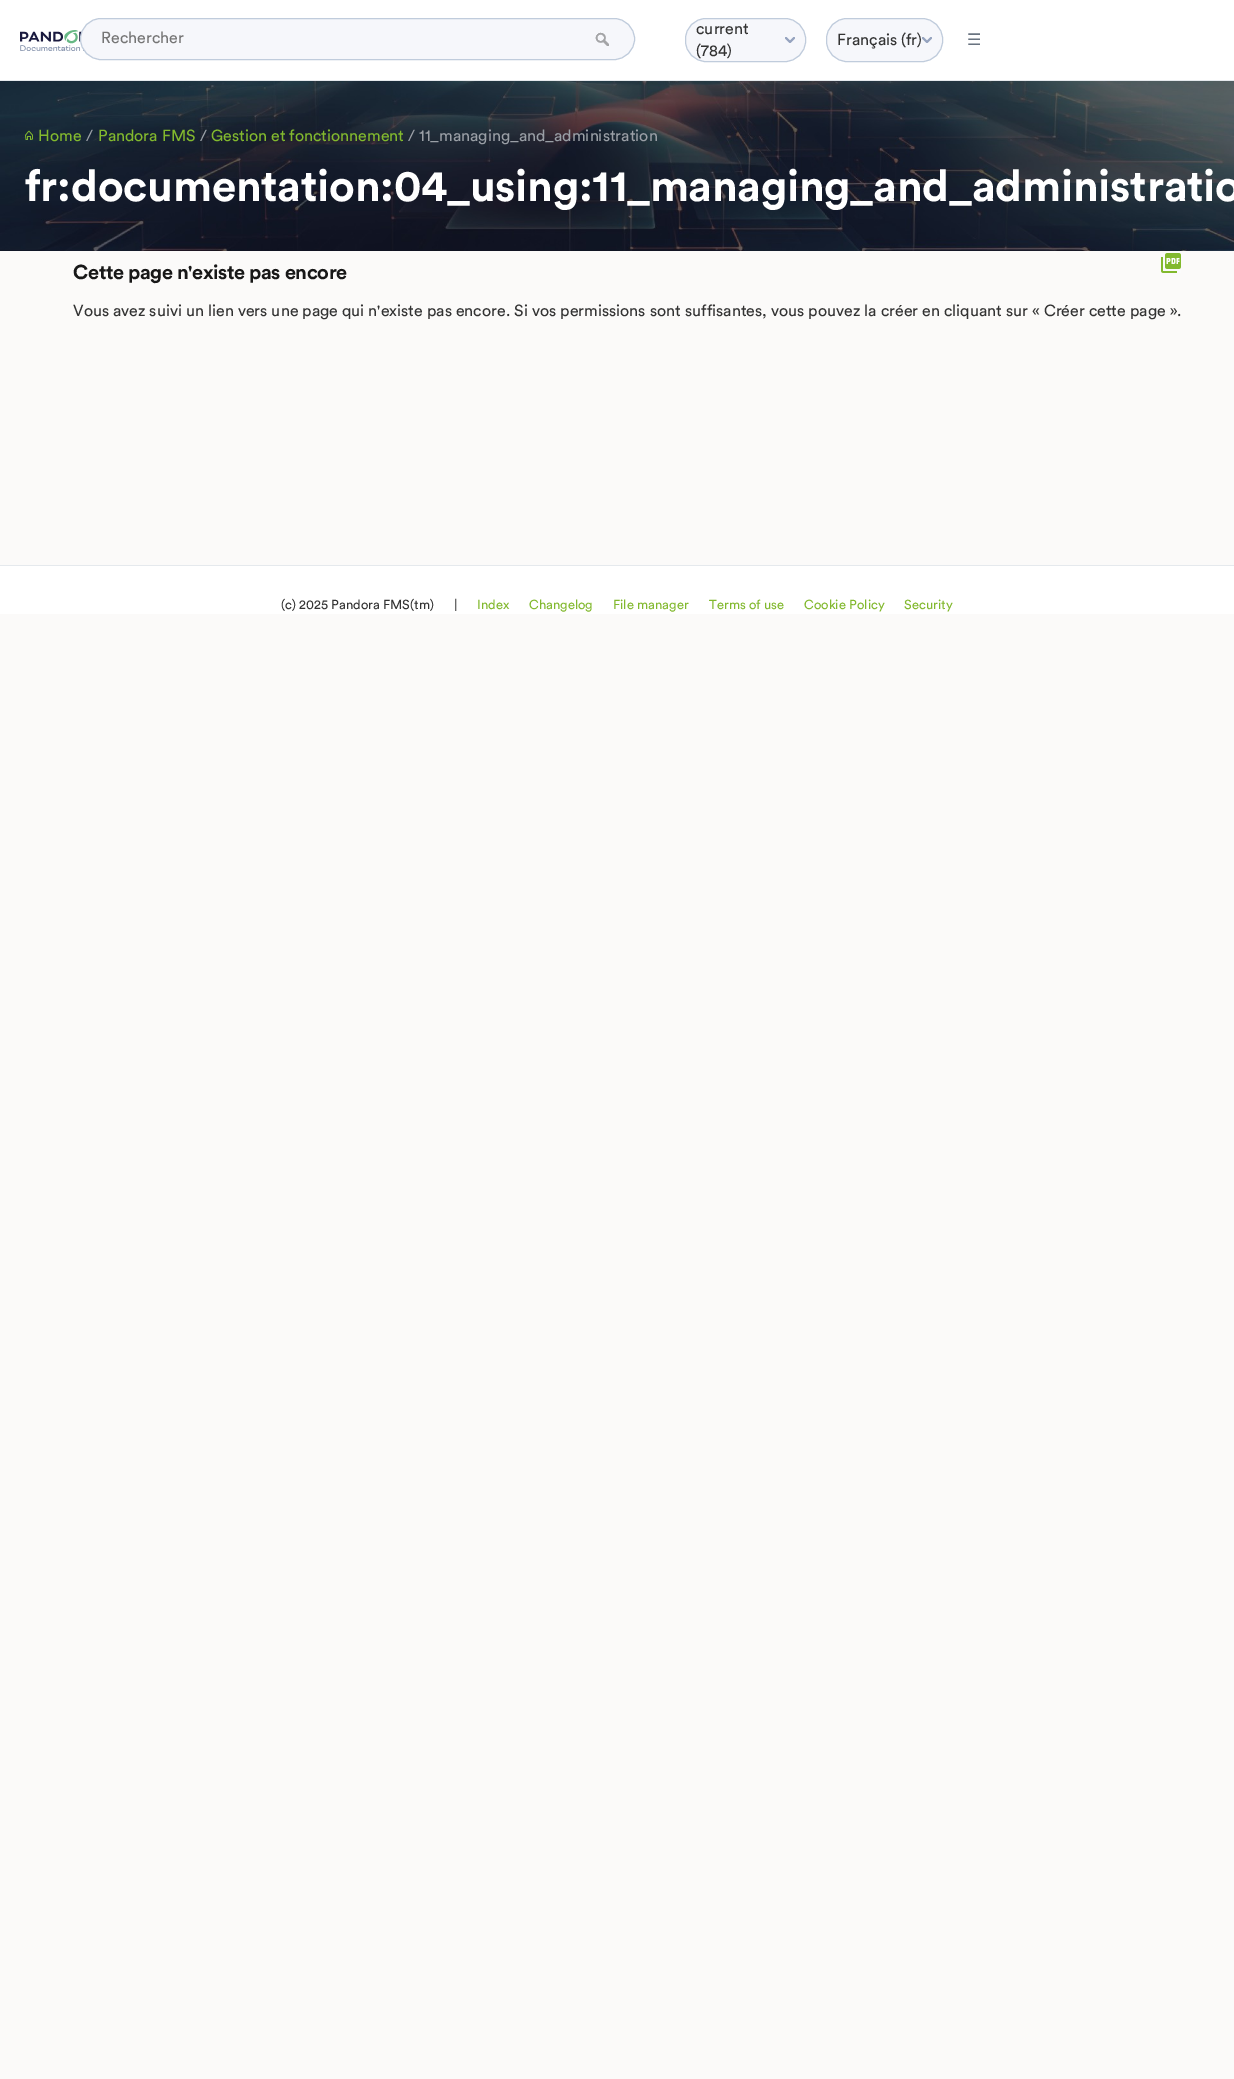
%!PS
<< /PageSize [1234 2079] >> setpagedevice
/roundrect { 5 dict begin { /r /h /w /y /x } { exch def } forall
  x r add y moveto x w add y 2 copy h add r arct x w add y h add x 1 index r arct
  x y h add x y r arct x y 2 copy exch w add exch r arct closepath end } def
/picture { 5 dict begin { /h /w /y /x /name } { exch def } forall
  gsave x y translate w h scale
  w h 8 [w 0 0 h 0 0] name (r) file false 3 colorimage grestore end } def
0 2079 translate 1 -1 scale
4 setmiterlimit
0.984 0.98 0.976 setrgbcolor
0 0 1234 2079 rectfill
1 setgray
0 0 1234 80 rectfill
0.898 0.914 0.929 setrgbcolor
0 80 1234 1 rectfill
(img1.rgb) 20 30 64 21 picture
0.965 0.969 0.984 setrgbcolor
80.5 18.5 554 41 20.5 roundrect gsave fill grestore
0.753 0.8 0.863 setrgbcolor
stroke
/Circular-Regular [16 0 0 -16 0 0] selectfont
0.459 setgray
101 43 moveto (Rechercher) show
(img2.rgb) 595 32 14 14 picture
0.965 0.969 0.984 setrgbcolor
685.5 18.5 120 43 20.5 roundrect gsave fill grestore
0.753 0.8 0.863 setrgbcolor
stroke
0.2 setgray
696 34 moveto (current) show
0.584 0.639 0.749 setrgbcolor
2 setlinewidth
1 setlinecap
1 setlinejoin
newpath 786 38 moveto 790 42 lineto 794 38 lineto stroke
0.2 setgray
696 56 moveto (\(784\)) show
0.965 0.969 0.984 setrgbcolor
826.5 18.5 116 43 20.5 roundrect gsave fill grestore
0.753 0.8 0.863 setrgbcolor
1 setlinewidth
0 setlinecap
0 setlinejoin
stroke
0.2 setgray
837 45 moveto (Français \(fr\)) show
0.584 0.639 0.749 setrgbcolor
2 setlinewidth
1 setlinecap
1 setlinejoin
newpath 923 38 moveto 927 42 lineto 931 38 lineto stroke
/DejaVuSans-Regular [16 0 0 -16 0 0] selectfont
0.412 0.451 0.502 setrgbcolor
967 45 moveto (☰) show
(img3.rgb) 0 81 1234 170 picture
(img4.rgb) 25 130 8 10 picture
/Circular-Regular [16 0 0 -16 0 0] selectfont
0.51 0.725 0.18 setrgbcolor
38 141 moveto (Home) show
0.604 0.624 0.651 setrgbcolor
86 141 moveto (/) show
0.51 0.725 0.18 setrgbcolor
98 141 moveto (Pandora FMS) show
0.604 0.624 0.651 setrgbcolor
200 141 moveto (/) show
0.51 0.725 0.18 setrgbcolor
211 141 moveto (Gestion et fonctionnement) show
0.604 0.624 0.651 setrgbcolor
408 141 moveto (/ 11_managing_and_administration) show
/Circular-Bold [44 0 0 -44 0 0] selectfont
1 setgray
25 201 moveto -0.2 0 (fr:documentation:04_using:11_managing_and_administratio) ashow
/Circular-Bold [20 0 0 -20 0 0] selectfont
0.094 setgray
73 279 moveto -0.4 0 (Cette page n'existe pas encore) ashow
(img5.rgb) 1161 253 20 20 picture
/Circular-Regular [16 0 0 -16 0 0] selectfont
0.2 setgray
73 316 moveto (Vous avez suivi un lien vers une page qui n'existe pas encore. Si vos permissions sont suffisantes, vous pouvez la créer en cliquant sur « Créer cette page ».) show
1 setgray
0 566 1234 48 rectfill
0.898 0.914 0.929 setrgbcolor
0 565 1234 1 rectfill
/Circular-Regular [13 0 0 -13 0 0] selectfont
0.2 setgray
281 609 moveto (\(c\) 2025 Pandora FMS\(tm\)) show
454 609 moveto (|) show
0.51 0.725 0.18 setrgbcolor
477 609 moveto (Index) show
529 609 moveto (Changelog) show
613 609 moveto (File manager) show
709 609 moveto (Terms of use) show
804 609 moveto (Cookie Policy) show
904 609 moveto (Security) show
showpage
